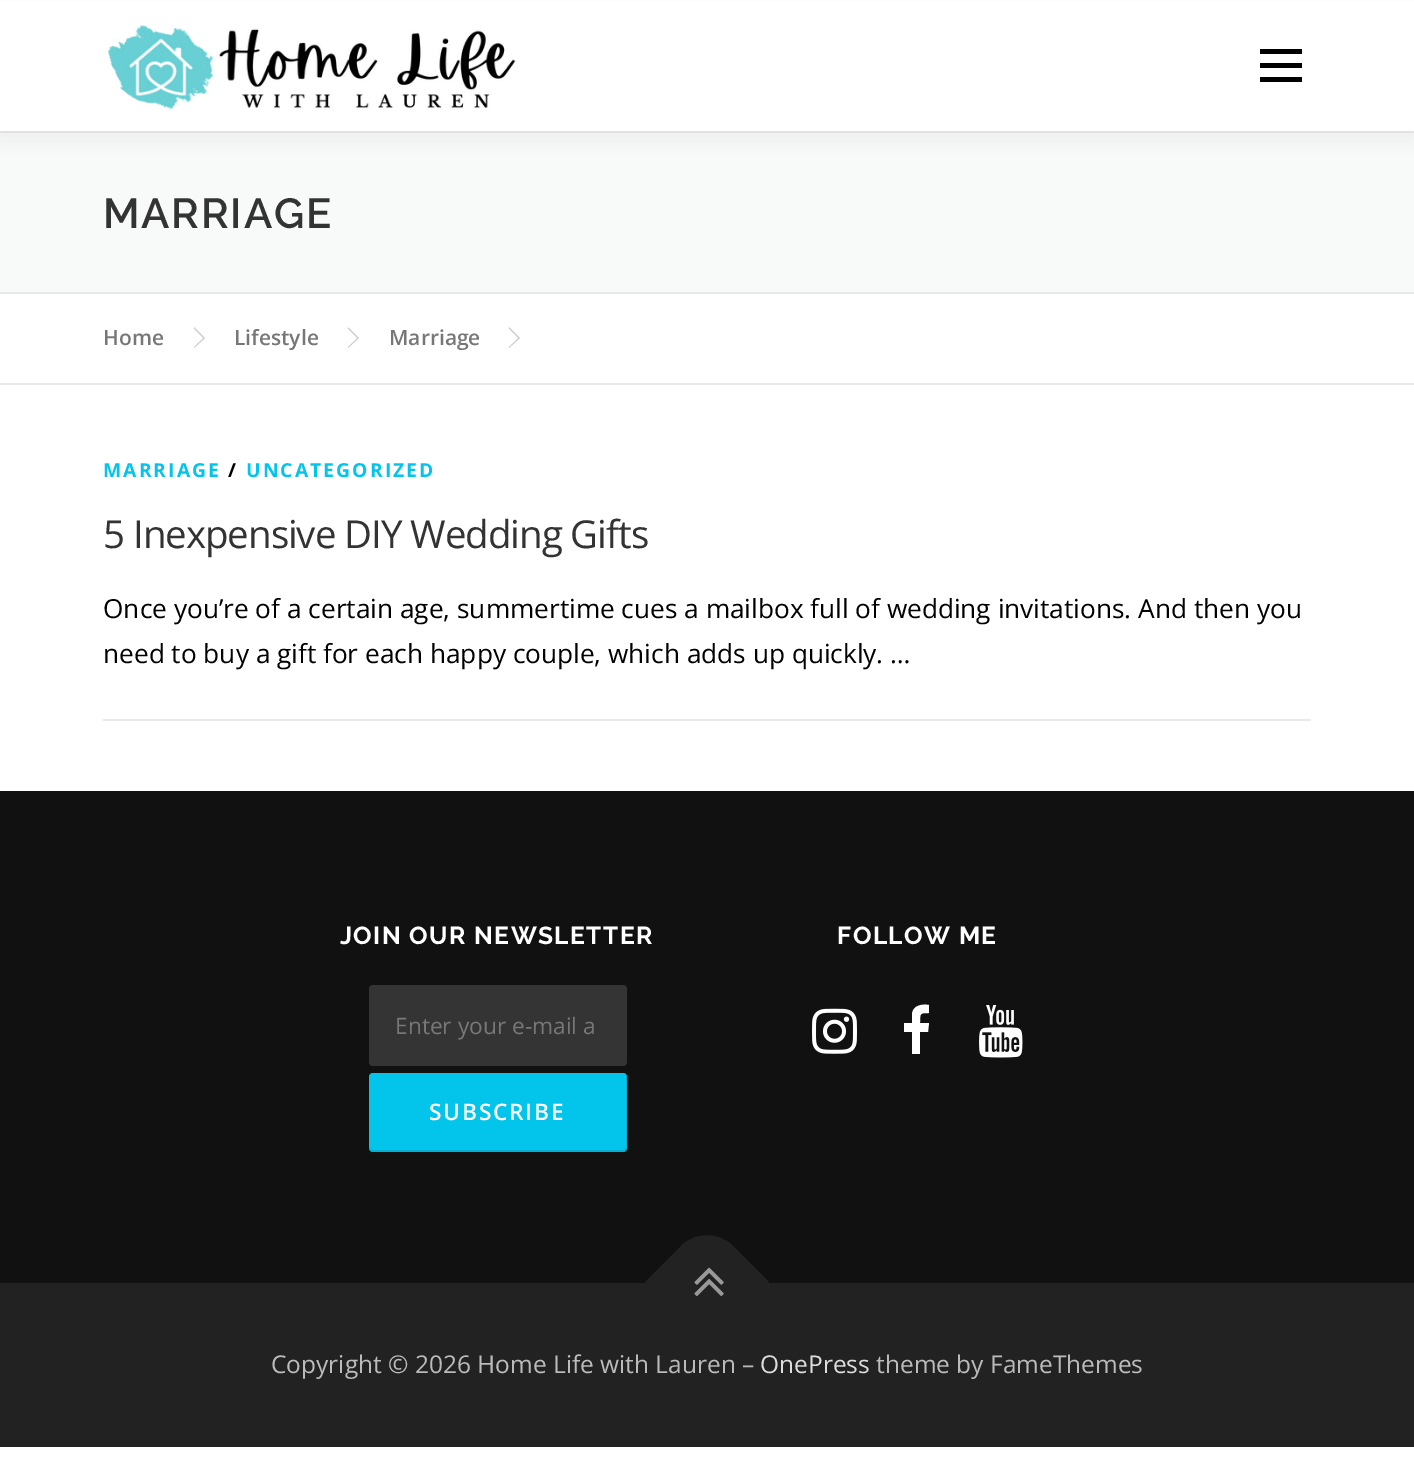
%!PS
<< /PageSize [1414 1461] /PageUsesTransparency true >> setpagedevice
/alpha { dup .setfillconstantalpha .setstrokeconstantalpha } def
/roundrect { 5 dict begin { /r /h /w /y /x } { exch def } forall
  x r add y moveto x w add y 2 copy h add r arct x w add y h add x 1 index r arct
  x y h add x y r arct x y 2 copy exch w add exch r arct closepath end } def
/shadow { 12 dict begin { /a /b /q /h /w /y /x } { exch def } forall gsave /was 0 def
  9 -2 -9 { dup b mul 4 div /e exch def 1 sub .425 mul 2.718 exch exp 1 add a .99 .min exch div /now exch def
    1 1 now sub 1 was sub div sub alpha /was now def
    w h .min e 2 mul add 0 gt { x e sub y e sub w e 2 mul add h e 2 mul add
      q e add b .6 mul add w h .min 2 div e add .min 0 .max roundrect fill } if } for grestore end } def
/picture { 5 dict begin { /h /w /y /x /name } { exch def } forall
  gsave x y translate w h scale
  w h 8 [w 0 0 h 0 0] name (r) file false 3 colorimage grestore end } def
0 .pushpdf14devicefilter
0 1461 translate 1 -1 scale
4 setmiterlimit
1 setgray
0 0 1414 1461 rectfill
0.973 0.976 0.976 setrgbcolor
0 133 1414 159 rectfill
0.914 setgray
0 131 1414 2 rectfill
0.196 setgray
0 9 1414 131 0 9 0.06 shadow
1 setgray
0 2 1414 129 rectfill
(img1.rgb) 107 25 409 86 picture
0 setgray
1260 63 42 5 rectfill
1260 49 42 5 rectfill
1260 77 42 5 rectfill
0.914 setgray
0 292 1414 2 rectfill
/Raleway-SemiBold [42 0 0 -42 0 0] selectfont
0.2 setgray
103 228 moveto 1.75 0 (MARRIAGE) ashow
0.914 setgray
0 383 1414 2 rectfill
0.8 setgray
newpath 194 348 moveto 194 327 lineto 205 338 lineto closepath fill
/OpenSans-SemiBold [21 0 0 -21 0 0] selectfont
0.467 setgray
103 345 moveto (Home) show
1 setgray
newpath 194 346.5 moveto 194 329 lineto 203 338 lineto closepath fill
0.467 setgray
234 345 moveto (Lifestyle) show
0.8 setgray
newpath 348 348 moveto 348 327 lineto 359 338 lineto closepath fill
1 setgray
newpath 348 346.5 moveto 348 329 lineto 357 338 lineto closepath fill
0.467 setgray
389 345 moveto (Marriage) show
0.8 setgray
newpath 509 348 moveto 509 327 lineto 520 338 lineto closepath fill
1 setgray
newpath 509 346.5 moveto 509 329 lineto 518 338 lineto closepath fill
0.914 setgray
103 719 1208 2 rectfill
/OpenSans-Bold [19.25 0 0 -19.25 0 0] selectfont
0.012 0.769 0.922 setrgbcolor
103 477 moveto 2.1 0 (MARRIAGE) ashow
0 setgray
228 477 moveto 2.1 0 (/) ashow
0.012 0.769 0.922 setrgbcolor
246 477 moveto 2.1 0 (UNCATEGORIZED) ashow
/OpenSans-Regular [38.5 0 0 -38.5 0 0] selectfont
0.2 setgray
103 548 moveto -1.05 0 (5 Inexpensive DIY Wedding Gifts) ashow
/OpenSans-Regular [26.25 0 0 -26.25 0 0] selectfont
0 setgray
103 618 moveto (Once you’re of a certain age, summertime cues a mailbox full of wedding invitations. And then you) show
103 663 moveto (need to buy a gift for each happy couple, which adds up quickly. …) show
0.067 setgray
0 791 1414 492 rectfill
/Raleway-Bold [24.6 0 0 -24.6 0 0] selectfont
1 setgray
340 944 moveto 1.4 0 (JOIN OUR NEWSLETTER) ashow
0.204 setgray
369 985 258 81 4 roundrect fill
/OpenSans-Regular [22.75 0 0 -22.75 0 0] selectfont
0.467 setgray
395 1034 moveto (Enter your e-mail a) show
0.012 0.769 0.922 setrgbcolor
369 1073 258 79 4 roundrect fill
0.1 alpha
0 setgray
newpath 369 1146 moveto 369 1148 lineto 369 1150 371 1152 373 1152 curveto 623 1152 lineto 625 1152 627 1150 627 1148 curveto 627 1077 lineto 627 1076 627 1075 626 1074 curveto 626 1146 lineto 626 1148 625 1150 623 1150 curveto 373 1150 lineto 371 1150 369 1148 369 1146 curveto closepath fill
/OpenSans-SemiBold [22.75 0 0 -22.75 0 0] selectfont
1 alpha
1 setgray
429 1120 moveto 1.75 0 (SUBSCRIBE) ashow
/Raleway-Bold [24.6 0 0 -24.6 0 0] selectfont
837 944 moveto 1.4 0 (FOLLOW ME) ashow
(img2.rgb) 812 1008 45 46 picture
newpath 929 1005 moveto 929 1013 lineto 920 1013 920 1013 920 1023 curveto 929 1023 lineto 928 1032 lineto 920 1032 lineto 920 1054 lineto 912 1054 lineto 912 1032 lineto 904 1032 lineto 904 1023 lineto 912 1023 lineto 912 1014 lineto 913 1005 922 1004 929 1005 curveto closepath fill
(img3.rgb) 979 1005 44 53 picture
0.133 setgray
0 1283 1414 164 rectfill
newpath 645 1282 moveto 682 1245 lineto 696 1232 718 1232 732 1245 curveto 769 1282 lineto 707 1344 lineto closepath fill
(img4.rgb) 694 1267 30 29 picture
/OpenSans-Regular [24.5 0 0 -24.5 0 0] selectfont
0.733 setgray
271 1373 moveto (Copyright © 2026 Home Life with Lauren –) show
0.867 setgray
760 1373 moveto (OnePress) show
0.733 setgray
876 1373 moveto (theme by FameThemes) show
.poppdf14devicefilter showpage
